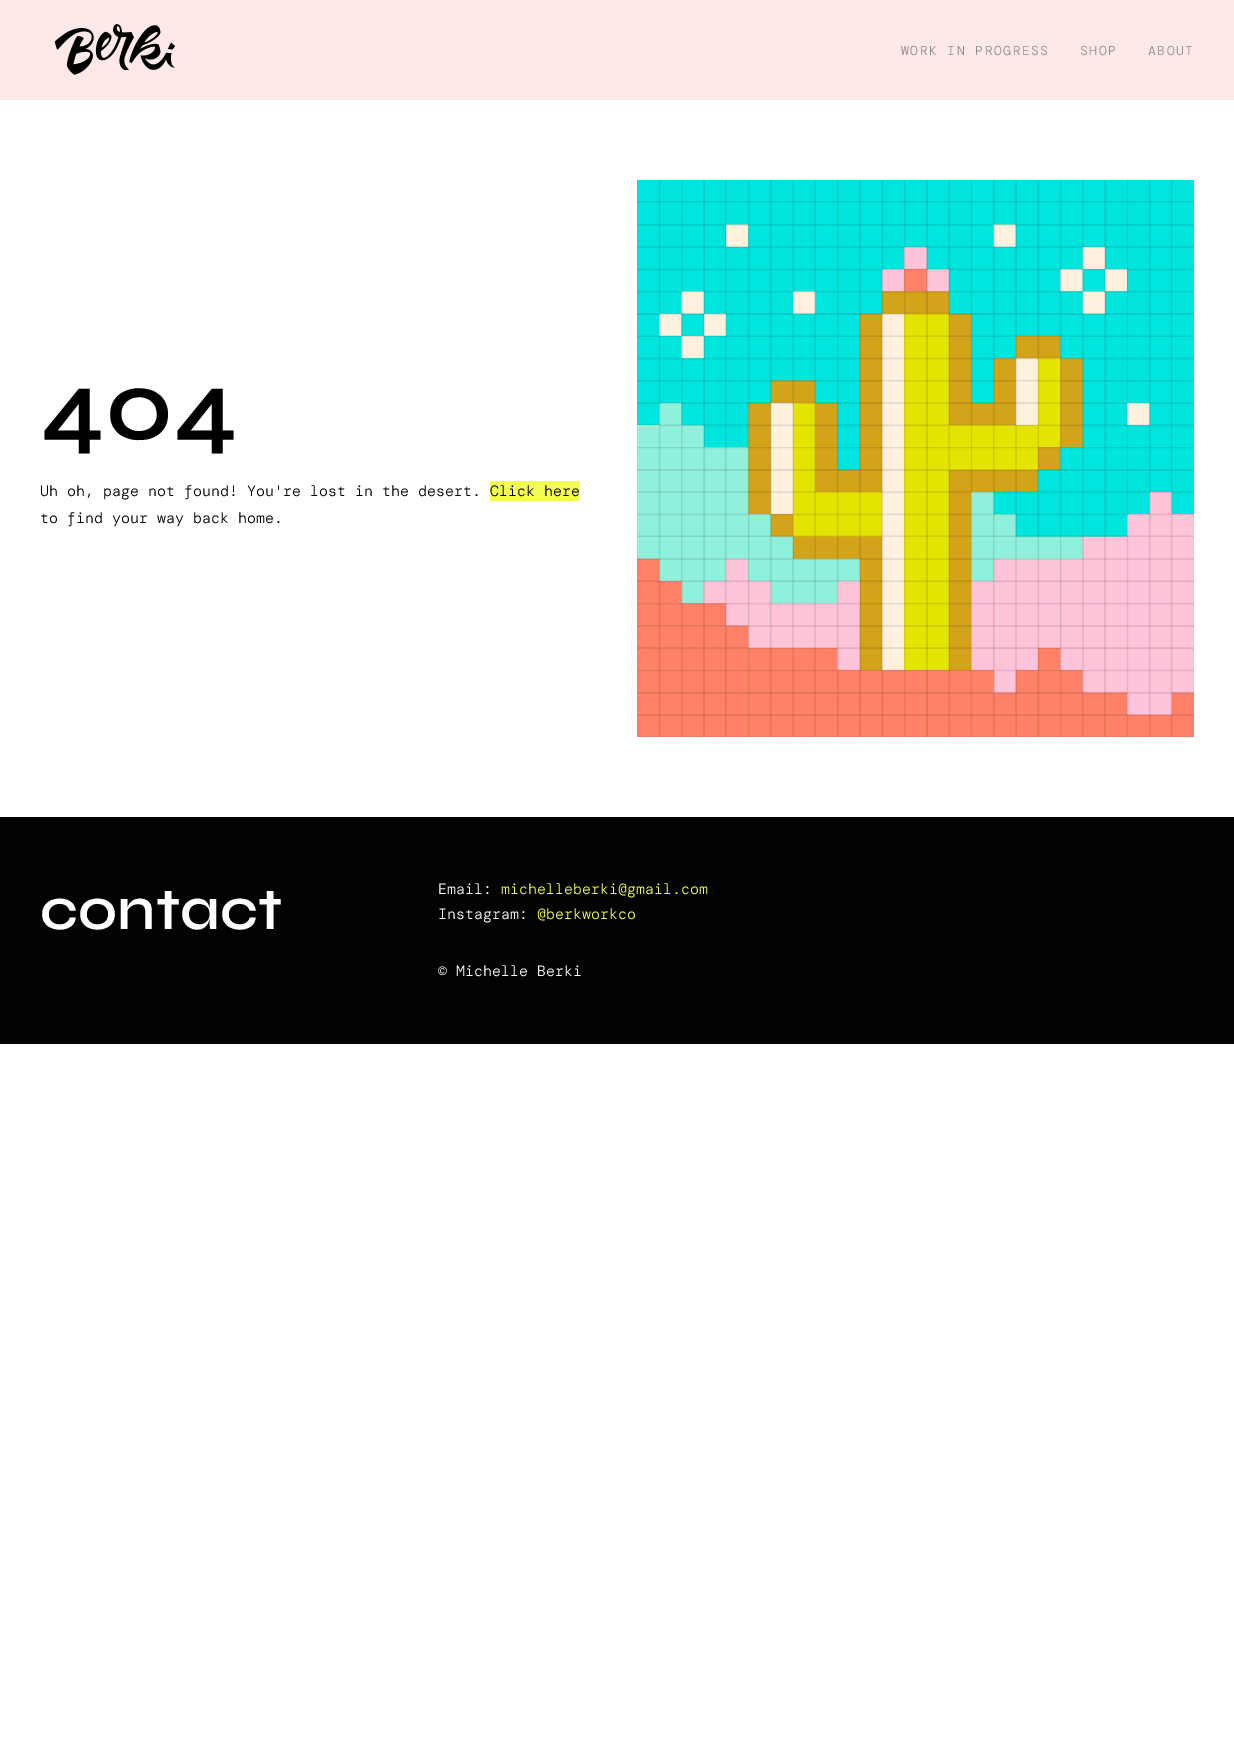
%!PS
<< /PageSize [1234 1744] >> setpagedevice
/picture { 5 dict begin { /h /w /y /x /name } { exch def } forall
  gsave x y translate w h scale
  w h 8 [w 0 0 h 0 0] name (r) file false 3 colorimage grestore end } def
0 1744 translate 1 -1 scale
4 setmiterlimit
1 setgray
0 0 1234 1744 rectfill
1 0.91 0.91 setrgbcolor
0 0 1234 100 rectfill
(img1.rgb) 55 24 120 51 picture
/DMMono-Light [13 0 0 -13 0 0] selectfont
0.549 setgray
901 55 moveto 1.5 0 (WORK IN PROGRESS) ashow
1080 55 moveto 1.5 0 (SHOP) ashow
1148 55 moveto 1.5 0 (ABOUT) ashow
/Syne-SemiBold [100 0 0 -100 0 0] selectfont
0 setgray
40 439 moveto (404) show
/DMMono-Light [15 0 0 -15 0 0] selectfont
40 496 moveto (Uh oh, page not found! You're lost in the desert.) show
0.957 0.992 0.329 setrgbcolor
490 481 90 20 rectfill
0 setgray
490 496 moveto (Click here) show
40 523 moveto (to find your way back home.) show
(img2.rgb) 637 180 557 557 picture
0.008 setgray
0 817 1234 227 rectfill
/Syne-SemiBold [60 0 0 -60 0 0] selectfont
1 setgray
40 929 moveto (contact) show
/DMMono-Light [15 0 0 -15 0 0] selectfont
438 894 moveto (Email:) show
0.957 0.992 0.329 setrgbcolor
501 894 moveto (michelleberki@gmail.com) show
1 setgray
438 919 moveto (Instagram:) show
0.957 0.992 0.329 setrgbcolor
537 919 moveto (@berkworkco) show
1 setgray
438 976 moveto (© Michelle Berki) show
showpage
